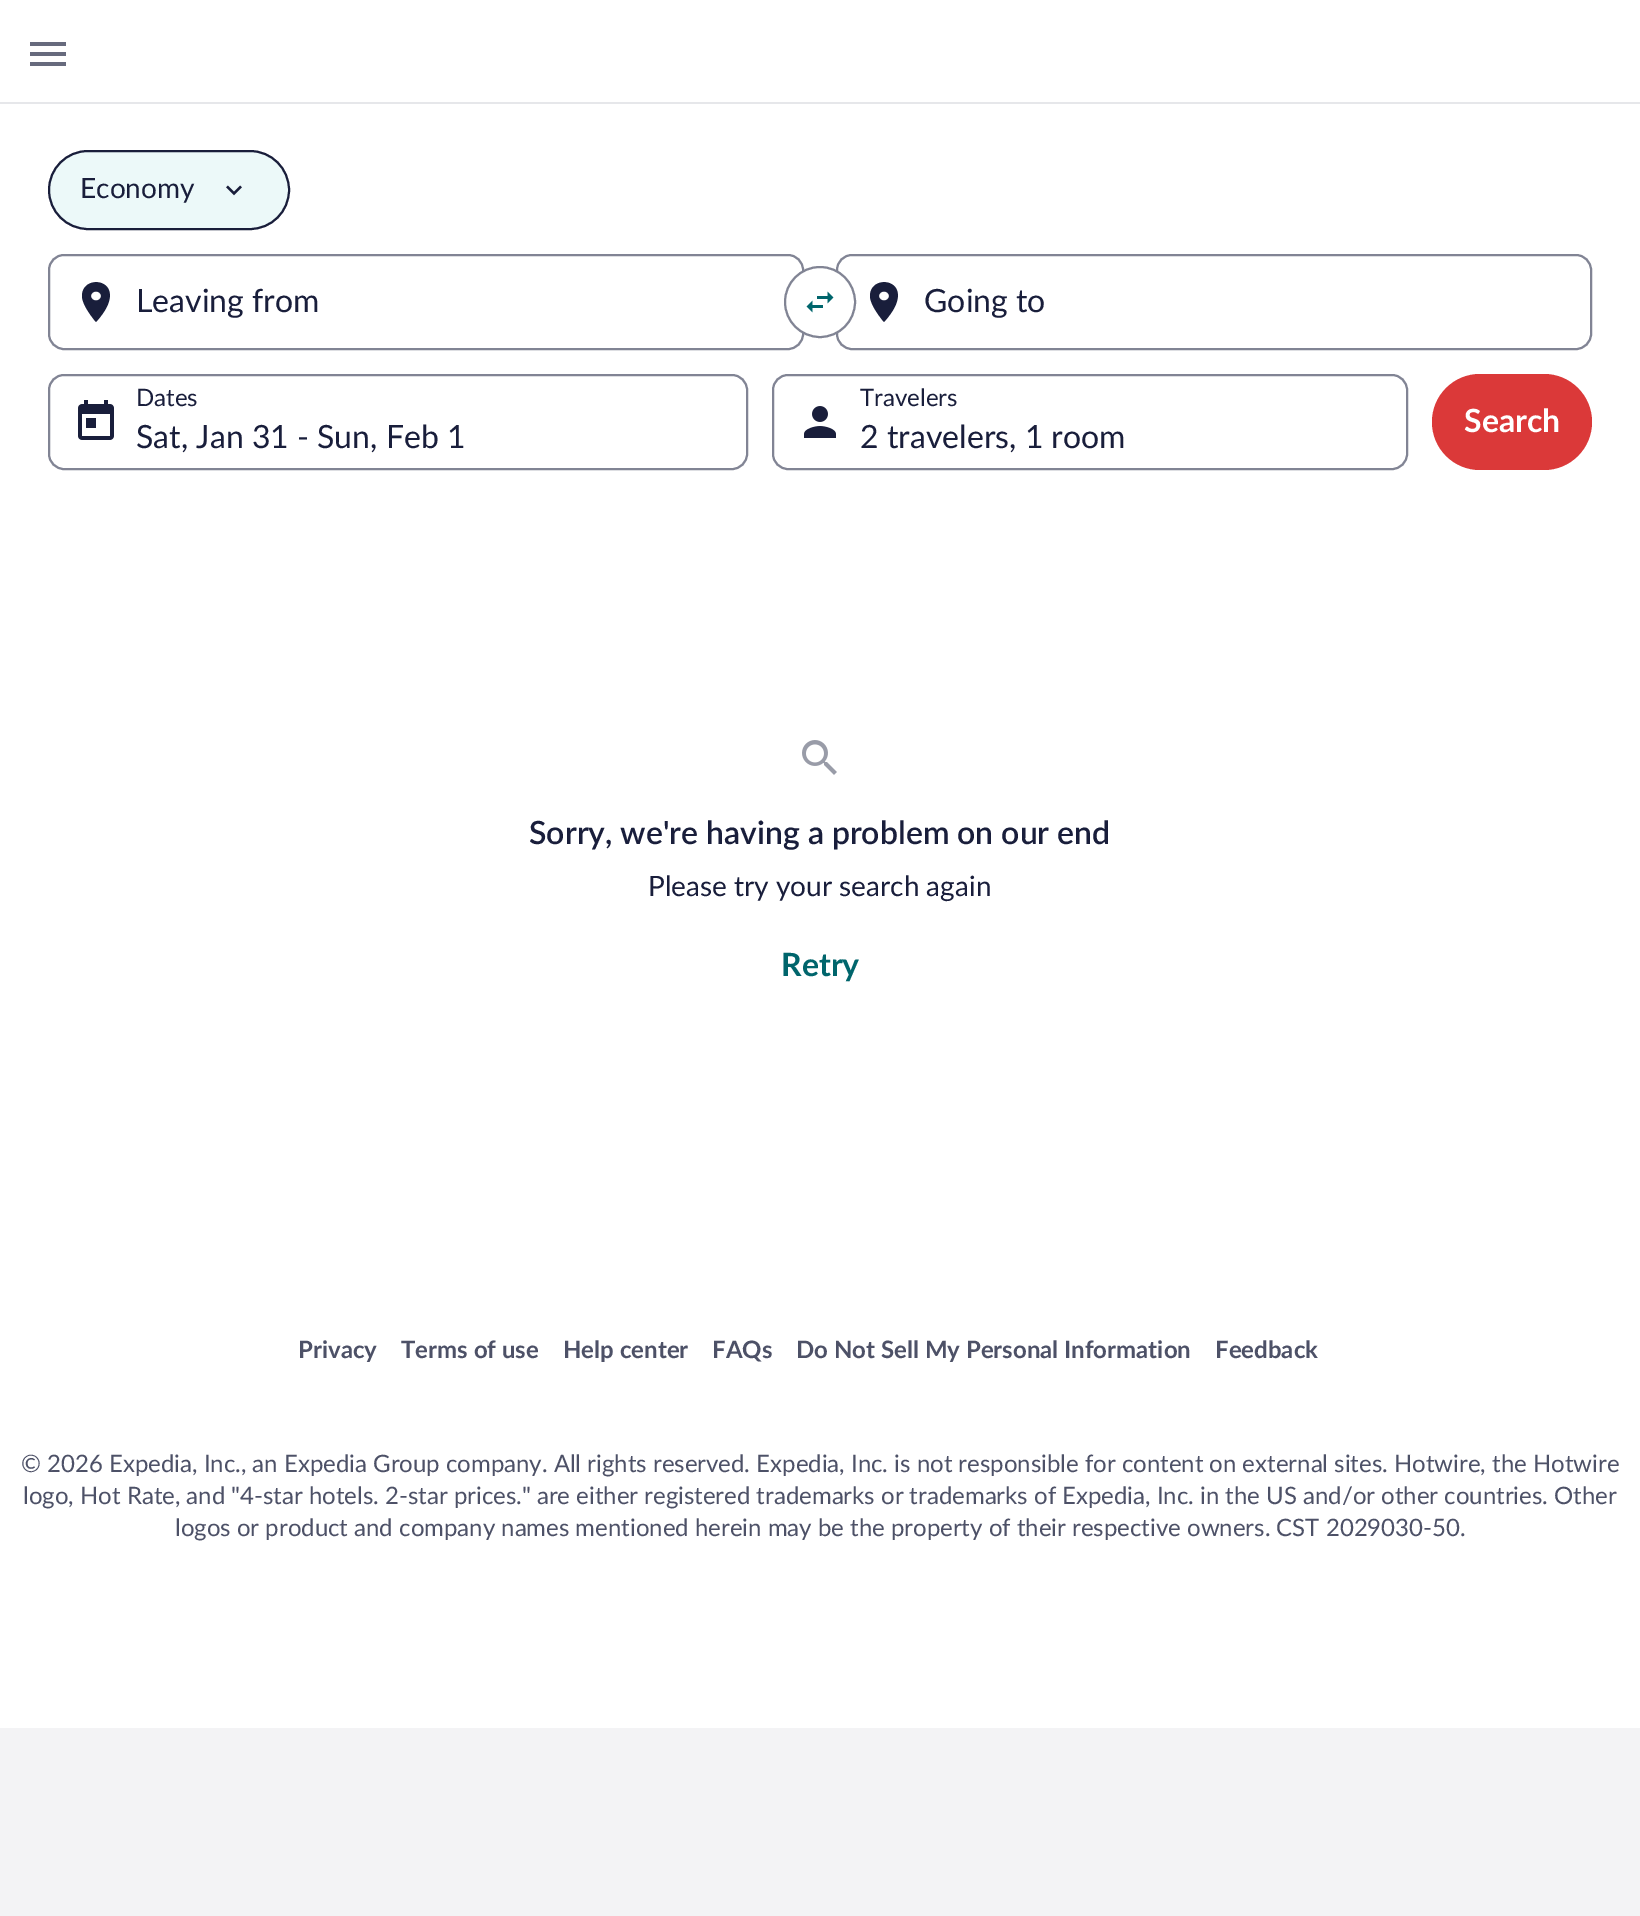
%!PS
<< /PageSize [1640 1916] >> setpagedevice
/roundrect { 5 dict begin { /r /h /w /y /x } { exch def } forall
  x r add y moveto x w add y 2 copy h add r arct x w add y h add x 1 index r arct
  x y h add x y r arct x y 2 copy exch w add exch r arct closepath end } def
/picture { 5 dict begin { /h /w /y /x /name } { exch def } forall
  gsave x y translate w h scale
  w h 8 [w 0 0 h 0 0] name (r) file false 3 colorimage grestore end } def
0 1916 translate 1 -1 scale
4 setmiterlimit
0.953 0.953 0.961 setrgbcolor
0 0 1640 1916 rectfill
1 setgray
0 0 1640 1728 rectfill
0.902 0.906 0.918 setrgbcolor
0 102 1640 2 rectfill
0.404 0.416 0.49 setrgbcolor
newpath 30 46 moveto 30 42 lineto 66 42 lineto 66 46 lineto closepath 30 56 moveto 66 56 lineto 66 52 lineto 30 52 lineto closepath 30 66 moveto 66 66 lineto 66 62 lineto 30 62 lineto closepath eofill
0.925 0.976 0.976 setrgbcolor
49 151 240 78 39 roundrect gsave fill grestore
0.098 0.118 0.231 setrgbcolor
2 setlinewidth
stroke
/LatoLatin-Regular [28 0 0 -28 0 0] selectfont
80 198 moveto (Economy) show
(img1.rgb) 226 185 16 11 picture
0.506 0.518 0.58 setrgbcolor
49 255 754 94 15 roundrect stroke
0.098 0.118 0.231 setrgbcolor
newpath 82 296 moveto 82 271 134 280 96 322 curveto 96 322 82 306 82 296 curveto closepath 91 296 moveto 91 302 101 302 101 296 curveto 101 290 91 290 91 296 curveto closepath eofill
/LatoLatin-Regular [32 0 0 -32 0 0] selectfont
136 312 moveto (Leaving from) show
0.506 0.518 0.58 setrgbcolor
837 255 754 94 15 roundrect stroke
1 setgray
newpath 820 302 35 0 360 arc closepath gsave fill grestore
0.506 0.518 0.58 setrgbcolor
stroke
(img2.rgb) 806 291 28 22 picture
0.098 0.118 0.231 setrgbcolor
newpath 870 296 moveto 870 271 922 280 884 322 curveto 884 322 870 306 870 296 curveto closepath 879 296 moveto 879 302 889 302 889 296 curveto 889 290 879 290 879 296 curveto closepath eofill
924 312 moveto (Going to) show
0.506 0.518 0.58 setrgbcolor
49 375 698 94 15 roundrect stroke
/LatoLatin-Regular [24 0 0 -24 0 0] selectfont
0.098 0.118 0.231 setrgbcolor
136 406 moveto (Dates) show
(img3.rgb) 78 400 36 40 picture
/LatoLatin-Regular [32 0 0 -32 0 0] selectfont
136 448 moveto (Sat, Jan 31 - Sun, Feb 1) show
0.506 0.518 0.58 setrgbcolor
773 375 634 94 15 roundrect stroke
/LatoLatin-Regular [24 0 0 -24 0 0] selectfont
0.098 0.118 0.231 setrgbcolor
860 406 moveto (Travelers) show
(img4.rgb) 804 406 32 32 picture
/LatoLatin-Regular [32 0 0 -32 0 0] selectfont
860 448 moveto (2 travelers, 1 room) show
0.859 0.224 0.224 setrgbcolor
1432 374 160 96 48 roundrect fill
/LatoLatin-Bold [32 0 0 -32 0 0] selectfont
1 setgray
1464 432 moveto (Search) show
(img5.rgb) 802 740 35 35 picture
/LatoLatin-SemiBold [32 0 0 -32 0 0] selectfont
0.098 0.118 0.231 setrgbcolor
529 844 moveto (Sorry, we're having a problem on our end) show
/LatoLatin-Regular [28 0 0 -28 0 0] selectfont
648 896 moveto (Please try your search again) show
/LatoLatin-Bold [32 0 0 -32 0 0] selectfont
0 0.396 0.424 setrgbcolor
781 976 moveto (Retry) show
/LatoLatin-Bold [24 0 0 -24 0 0] selectfont
0.302 0.318 0.404 setrgbcolor
298 1358 moveto (Privacy) show
401 1358 moveto (Terms of use) show
563 1358 moveto (Help center) show
712 1358 moveto (FAQs) show
796 1358 moveto (Do Not Sell My Personal Information) show
1215 1358 moveto (Feedback) show
/LatoLatin-Regular [24 0 0 -24 0 0] selectfont
21 1472 moveto (© 2026 Expedia, Inc., an Expedia Group company. All rights reserved. Expedia, Inc. is not responsible for content on external sites. Hotwire, the Hotwire) show
23 1504 moveto (logo, Hot Rate, and "4-star hotels. 2-star prices." are either registered trademarks or trademarks of Expedia, Inc. in the US and/or other countries. Other) show
175 1536 moveto (logos or product and company names mentioned herein may be the property of their respective owners. CST 2029030-50.) show
showpage
